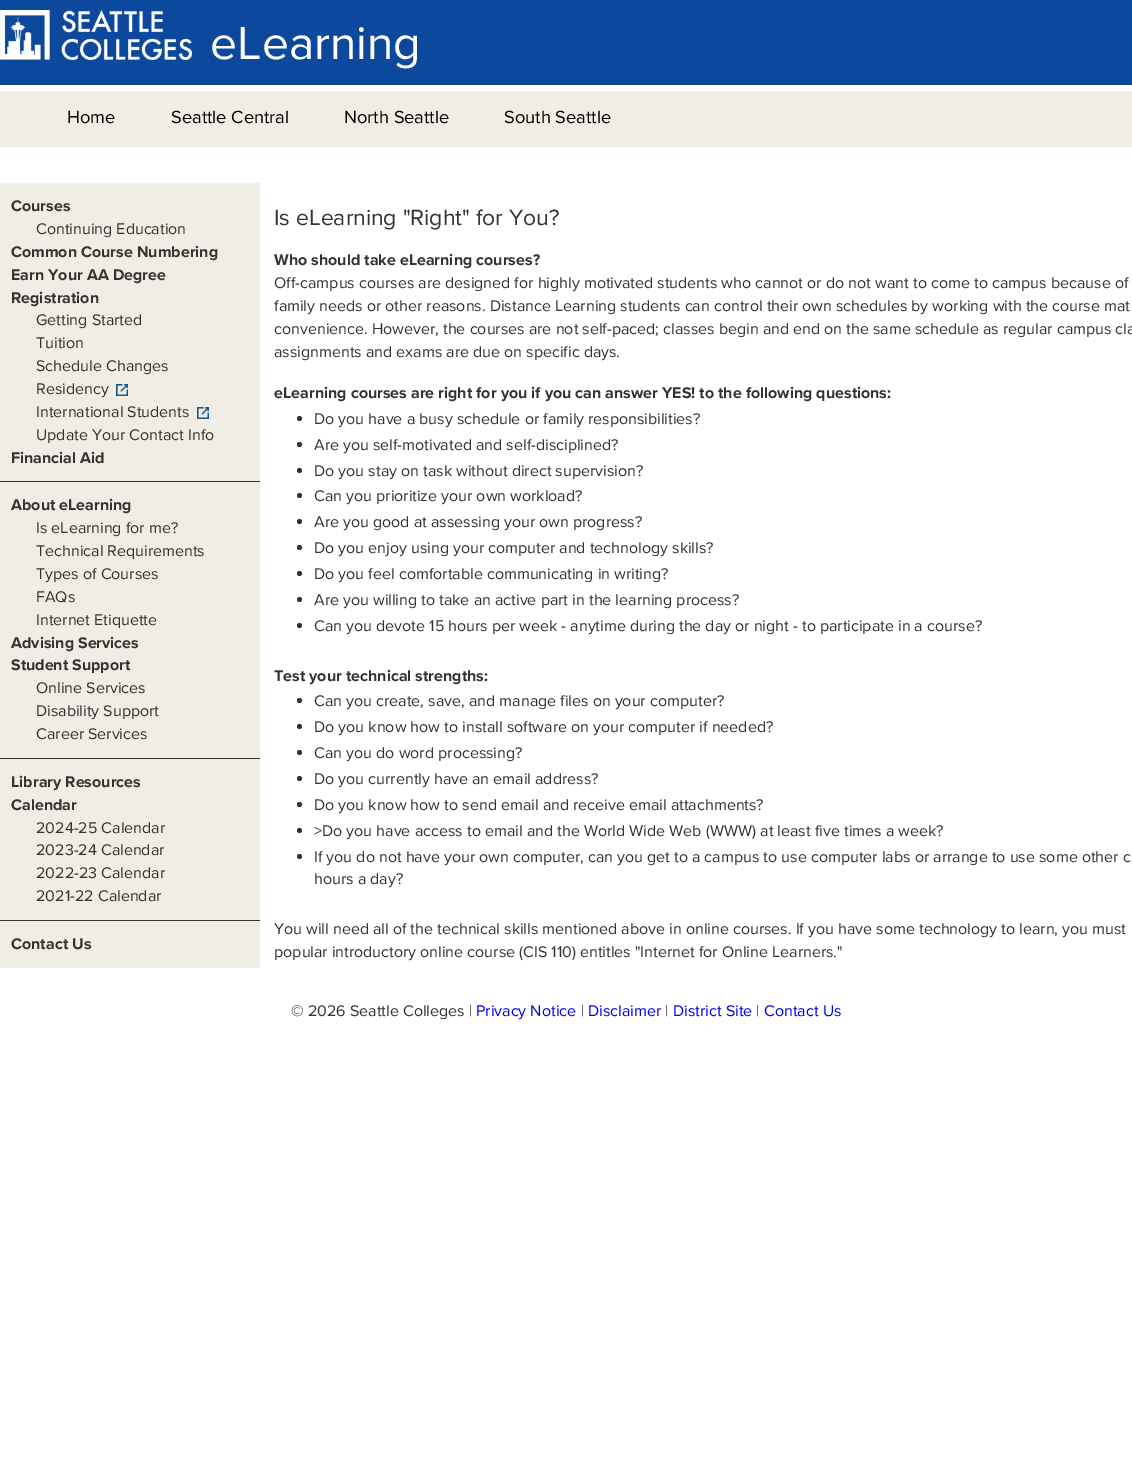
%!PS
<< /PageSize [1132 1482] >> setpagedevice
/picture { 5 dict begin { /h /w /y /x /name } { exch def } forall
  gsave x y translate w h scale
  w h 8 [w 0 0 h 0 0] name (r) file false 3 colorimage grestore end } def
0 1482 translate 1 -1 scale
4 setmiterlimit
1 setgray
0 0 1132 1482 rectfill
0.047 0.282 0.608 setrgbcolor
0 0 1132 85 rectfill
(img1.rgb) 0 10 192 50 picture
/ProximaNova-Regular [48 0 0 -48 0 0] selectfont
1 setgray
210 59 moveto (eLearning) show
0.941 0.929 0.894 setrgbcolor
0 91 1132 56 rectfill
/ProximaNova-Regular [18.25 0 0 -18.25 0 0] selectfont
0 setgray
67 123 moveto (Home) show
171 123 moveto (Seattle Central) show
344 123 moveto (North Seattle) show
504 123 moveto (South Seattle) show
0.941 0.929 0.894 setrgbcolor
0 183 260 785 rectfill
0.2 setgray
0 481 260 1 rectfill
/ProximaNova-Bold [16 0 0 -16 0 0] selectfont
11 211 moveto (Courses) show
/ProximaNova-Regular [16 0 0 -16 0 0] selectfont
36 234 moveto (Continuing Education) show
/ProximaNova-Bold [16 0 0 -16 0 0] selectfont
11 257 moveto (Common Course Numbering) show
11 280 moveto (Earn Your AA Degree) show
11 303 moveto (Registration) show
/ProximaNova-Regular [16 0 0 -16 0 0] selectfont
36 325 moveto (Getting Started) show
36 348 moveto (Tuition) show
36 371 moveto (Schedule Changes) show
36 394 moveto (Residency) show
(img2.rgb) 116 384 12 12 picture
36 417 moveto (International Students) show
(img3.rgb) 197 407 12 12 picture
36 440 moveto (Update Your Contact Info) show
/ProximaNova-Bold [16 0 0 -16 0 0] selectfont
11 463 moveto (Financial Aid) show
0 758 260 1 rectfill
11 510 moveto (About eLearning) show
/ProximaNova-Regular [16 0 0 -16 0 0] selectfont
36 533 moveto (Is eLearning for me?) show
36 556 moveto (Technical Requirements) show
36 579 moveto (Types of Courses) show
36 602 moveto (FAQs) show
36 625 moveto (Internet Etiquette) show
/ProximaNova-Bold [16 0 0 -16 0 0] selectfont
11 648 moveto (Advising Services) show
11 670 moveto (Student Support) show
/ProximaNova-Regular [16 0 0 -16 0 0] selectfont
36 693 moveto (Online Services) show
36 716 moveto (Disability Support) show
36 739 moveto (Career Services) show
0 920 260 1 rectfill
/ProximaNova-Bold [16 0 0 -16 0 0] selectfont
11 787 moveto (Library Resources) show
11 810 moveto (Calendar) show
/ProximaNova-Regular [16 0 0 -16 0 0] selectfont
36 833 moveto (2024-25 Calendar) show
36 855 moveto (2023-24 Calendar) show
36 878 moveto (2022-23 Calendar) show
36 901 moveto (2021-22 Calendar) show
/ProximaNova-Bold [16 0 0 -16 0 0] selectfont
11 949 moveto (Contact Us) show
/ProximaNova-Regular [22.9 0 0 -22.9 0 0] selectfont
274 225 moveto (Is eLearning "Right" for You?) show
/ProximaNova-Bold [16 0 0 -16 0 0] selectfont
274 265 moveto (Who should take eLearning courses?) show
/ProximaNova-Regular [16 0 0 -16 0 0] selectfont
274 288 moveto (Off-campus courses are designed for highly motivated students who cannot or do not want to come to campus because of) show
274 311 moveto (family needs or other reasons. Distance Learning students can control their own schedules by working with the course mat) show
274 334 moveto (convenience. However, the courses are not self-paced; classes begin and end on the same schedule as regular campus cla) show
274 357 moveto (assignments and exams are due on specific days.) show
/ProximaNova-Bold [16 0 0 -16 0 0] selectfont
274 398 moveto (eLearning courses are right for you if you can answer YES! to the following questions:) show
newpath 299.5 418.5 2.5 0 360 arc closepath fill
/ProximaNova-Regular [16 0 0 -16 0 0] selectfont
314 424 moveto (Do you have a busy schedule or family responsibilities?) show
newpath 299.5 444.5 2.5 0 360 arc closepath fill
314 450 moveto (Are you self-motivated and self-disciplined?) show
newpath 299.5 470.5 2.5 0 360 arc closepath fill
314 476 moveto (Do you stay on task without direct supervision?) show
newpath 299.5 495.5 2.5 0 360 arc closepath fill
314 501 moveto (Can you prioritize your own workload?) show
newpath 299.5 521.5 2.5 0 360 arc closepath fill
314 527 moveto (Are you good at assessing your own progress?) show
newpath 299.5 547.5 2.5 0 360 arc closepath fill
314 553 moveto (Do you enjoy using your computer and technology skills?) show
newpath 299.5 573.5 2.5 0 360 arc closepath fill
314 579 moveto (Do you feel comfortable communicating in writing?) show
newpath 299.5 599.5 2.5 0 360 arc closepath fill
314 605 moveto (Are you willing to take an active part in the learning process?) show
newpath 299.5 625.5 2.5 0 360 arc closepath fill
314 631 moveto (Can you devote 15 hours per week - anytime during the day or night - to participate in a course?) show
/ProximaNova-Bold [16 0 0 -16 0 0] selectfont
274 681 moveto (Test your technical strengths:) show
newpath 299.5 700.5 2.5 0 360 arc closepath fill
/ProximaNova-Regular [16 0 0 -16 0 0] selectfont
314 706 moveto (Can you create, save, and manage files on your computer?) show
newpath 299.5 726.5 2.5 0 360 arc closepath fill
314 732 moveto (Do you know how to install software on your computer if needed?) show
newpath 299.5 752.5 2.5 0 360 arc closepath fill
314 758 moveto (Can you do word processing?) show
newpath 299.5 778.5 2.5 0 360 arc closepath fill
314 784 moveto (Do you currently have an email address?) show
newpath 299.5 804.5 2.5 0 360 arc closepath fill
314 810 moveto (Do you know how to send email and receive email attachments?) show
newpath 299.5 830.5 2.5 0 360 arc closepath fill
314 836 moveto (>Do you have access to email and the World Wide Web \(WWW\) at least five times a week?) show
newpath 299.5 856.5 2.5 0 360 arc closepath fill
314 862 moveto (If you do not have your own computer, can you get to a campus to use computer labs or arrange to use some other c) show
314 884 moveto (hours a day?) show
274 934 moveto (You will need all of the technical skills mentioned above in online courses. If you have some technology to learn, you must) show
274 957 moveto (popular introductory online course \(CIS 110\) entitles "Internet for Online Learners.") show
291 1016 moveto (© 2026 Seattle Colleges |) show
0 0 0.933 setrgbcolor
476 1016 moveto (Privacy Notice) show
0.2 setgray
581 1016 moveto (|) show
0 0 0.933 setrgbcolor
588 1016 moveto (Disclaimer) show
0.2 setgray
665 1016 moveto (|) show
0 0 0.933 setrgbcolor
673 1016 moveto (District Site) show
0.2 setgray
756 1016 moveto (|) show
0 0 0.933 setrgbcolor
764 1016 moveto (Contact Us) show
showpage
